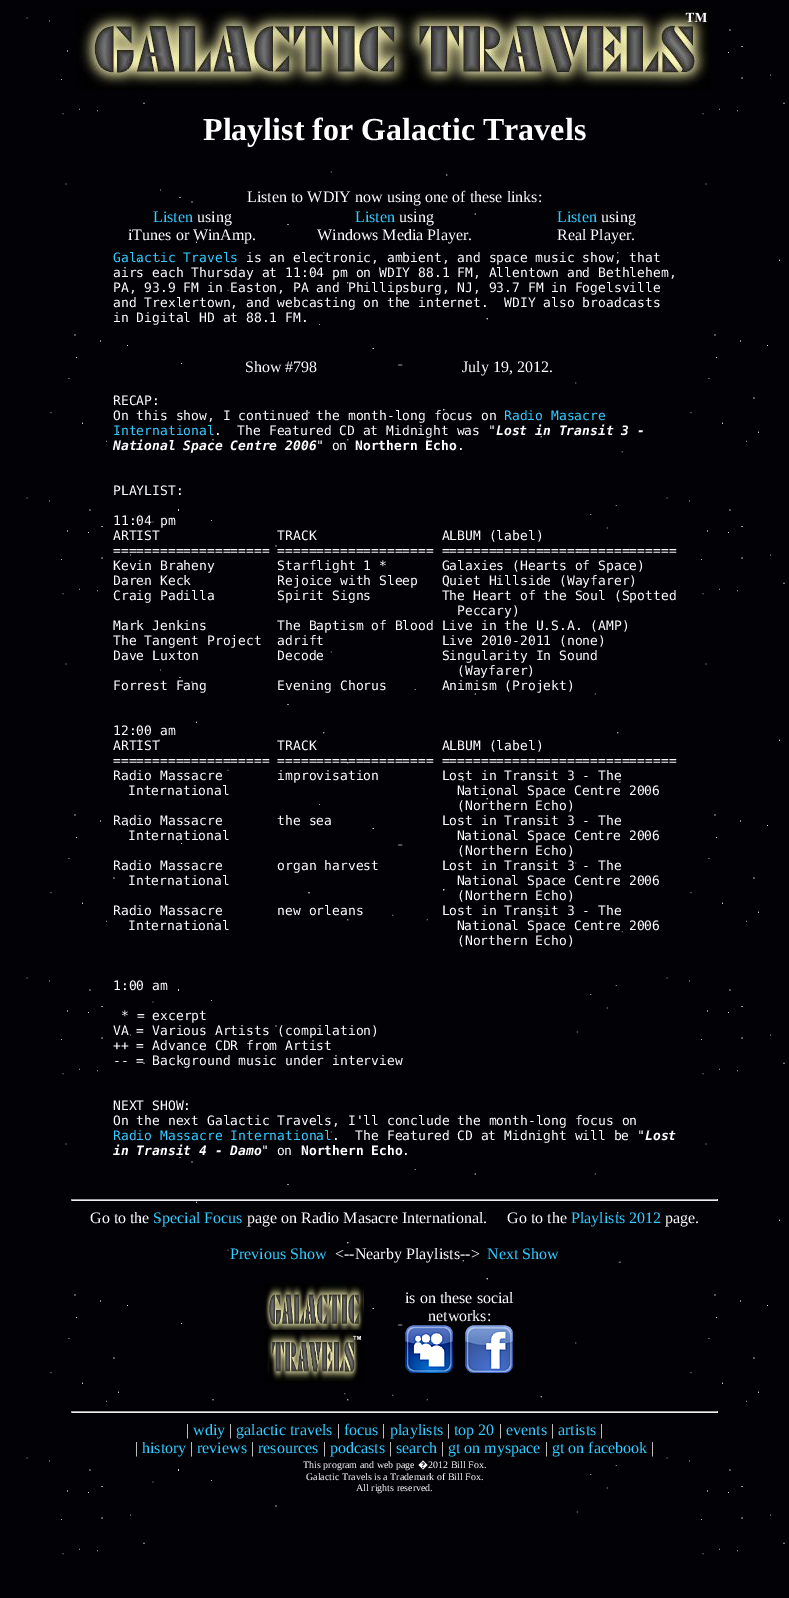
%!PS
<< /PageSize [789 1598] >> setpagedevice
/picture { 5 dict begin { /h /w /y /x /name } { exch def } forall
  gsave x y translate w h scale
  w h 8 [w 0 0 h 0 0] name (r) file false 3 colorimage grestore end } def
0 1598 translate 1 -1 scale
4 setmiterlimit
1 setgray
0 0 789 1598 rectfill
(img1.rgb) 0 0 789 1598 picture
(img2.rgb) 77 8 635 82 picture
/LiberationSerif-Bold [32 0 0 -32 0 0] selectfont
203 140 moveto (Playlist for Galactic Travels) show
/LiberationSerif-Regular [16 0 0 -16 0 0] selectfont
247 202 moveto (Listen to WDIY now using one of these links:) show
0.2 0.8 1 setrgbcolor
153 222 moveto (Listen) show
1 setgray
197 222 moveto (using) show
128 240 moveto (iTunes or WinAmp.) show
0.2 0.8 1 setrgbcolor
355 222 moveto (Listen) show
1 setgray
399 222 moveto (using) show
317 240 moveto (Windows Media Player.) show
0.2 0.8 1 setrgbcolor
557 222 moveto (Listen) show
1 setgray
601 222 moveto (using) show
557 240 moveto (Real Player.) show
/DejaVuSansMono-Regular [13 0 0 -13 0 0] selectfont
0.2 0.8 1 setrgbcolor
113 262 moveto (Galactic Travels) show
1 setgray
246 262 moveto (is an electronic, ambient, and space music show, that) show
113 277 moveto (airs each Thursday at 11:04 pm on WDIY 88.1 FM, Allentown and Bethlehem,) show
113 292 moveto (PA, 93.9 FM in Easton, PA and Phillipsburg, NJ, 93.7 FM in Fogelsville) show
113 307 moveto (and Trexlertown, and webcasting on the internet.  WDIY also broadcasts) show
113 322 moveto (in Digital HD at 88.1 FM.) show
/LiberationSerif-Regular [16 0 0 -16 0 0] selectfont
245 372 moveto (Show #798) show
462 372 moveto (July 19, 2012.) show
/DejaVuSansMono-Regular [13 0 0 -13 0 0] selectfont
113 405 moveto (RECAP:) show
113 420 moveto (On this show, I continued the month-long focus on) show
0.2 0.8 1 setrgbcolor
504 420 moveto (Radio Masacre) show
113 435 moveto (International) show
1 setgray
214 435 moveto (.  The Featured CD at Midnight was ") show
/DejaVuSansMono-BoldItalic [13 0 0 -13 0 0] selectfont
496 435 moveto (Lost in Transit 3 -) show
113 450 moveto (National Space Centre 2006) show
/DejaVuSansMono-Regular [13 0 0 -13 0 0] selectfont
316 450 moveto (" on) show
/DejaVuSansMono-Bold [13 0 0 -13 0 0] selectfont
355 450 moveto (Northern Echo) show
/DejaVuSansMono-Regular [13 0 0 -13 0 0] selectfont
457 450 moveto (.) show
113 495 moveto (PLAYLIST:) show
113 525 moveto (11:04 pm) show
113 540 moveto (ARTIST               TRACK                ALBUM \(label\)) show
113 555 moveto (==================== ==================== ==============================) show
113 570 moveto (Kevin Braheny        Starflight 1 *       Galaxies \(Hearts of Space\)) show
113 585 moveto (Daren Keck           Rejoice with Sleep   Quiet Hillside \(Wayfarer\)) show
113 600 moveto (Craig Padilla        Spirit Signs         The Heart of the Soul \(Spotted) show
457 615 moveto (Peccary\)) show
113 630 moveto (Mark Jenkins         The Baptism of Blood Live in the U.S.A. \(AMP\)) show
113 645 moveto (The Tangent Project  adrift               Live 2010-2011 \(none\)) show
113 660 moveto (Dave Luxton          Decode               Singularity In Sound) show
457 675 moveto (\(Wayfarer\)) show
113 690 moveto (Forrest Fang         Evening Chorus       Animism \(Projekt\)) show
113 735 moveto (12:00 am) show
113 750 moveto (ARTIST               TRACK                ALBUM \(label\)) show
113 765 moveto (==================== ==================== ==============================) show
113 780 moveto (Radio Massacre       improvisation        Lost in Transit 3 - The) show
128 795 moveto (International                             National Space Centre 2006) show
457 810 moveto (\(Northern Echo\)) show
113 825 moveto (Radio Massacre       the sea              Lost in Transit 3 - The) show
128 840 moveto (International                             National Space Centre 2006) show
457 855 moveto (\(Northern Echo\)) show
113 870 moveto (Radio Massacre       organ harvest        Lost in Transit 3 - The) show
128 885 moveto (International                             National Space Centre 2006) show
457 900 moveto (\(Northern Echo\)) show
113 915 moveto (Radio Massacre       new orleans          Lost in Transit 3 - The) show
128 930 moveto (International                             National Space Centre 2006) show
457 945 moveto (\(Northern Echo\)) show
113 990 moveto (1:00 am) show
121 1020 moveto (* = excerpt) show
113 1035 moveto (VA = Various Artists \(compilation\)) show
113 1050 moveto (++ = Advance CDR from Artist) show
113 1065 moveto (-- = Background music under interview) show
113 1110 moveto (NEXT SHOW:) show
113 1125 moveto (On the next Galactic Travels, I'll conclude the month-long focus on) show
0.2 0.8 1 setrgbcolor
113 1140 moveto (Radio Massacre International) show
1 setgray
332 1140 moveto (.  The Featured CD at Midnight will be ") show
/DejaVuSansMono-BoldItalic [13 0 0 -13 0 0] selectfont
645 1140 moveto (Lost) show
113 1155 moveto (in Transit 4 - Damo) show
/DejaVuSansMono-Regular [13 0 0 -13 0 0] selectfont
261 1155 moveto (" on) show
/DejaVuSansMono-Bold [13 0 0 -13 0 0] selectfont
301 1155 moveto (Northern Echo) show
/DejaVuSansMono-Regular [13 0 0 -13 0 0] selectfont
402 1155 moveto (.) show
0.624 setgray
71 1199 647 1 rectfill
0.933 setgray
717 1199 1 2 rectfill
71 1200 647 1 rectfill
0.624 setgray
71 1199 1 2 rectfill
/LiberationSerif-Regular [16 0 0 -16 0 0] selectfont
1 setgray
90 1223 moveto (Go to the) show
0.2 0.8 1 setrgbcolor
153 1223 moveto (Special Focus) show
1 setgray
247 1223 moveto (page on Radio Masacre International.     Go to the) show
0.2 0.8 1 setrgbcolor
571 1223 moveto (Playlists 2012) show
1 setgray
665 1223 moveto (page.) show
0.2 0.8 1 setrgbcolor
230 1259 moveto (Previous Show) show
1 setgray
335 1259 moveto (<--Nearby Playlists-->) show
0.2 0.8 1 setrgbcolor
487 1259 moveto (Next Show) show
(img3.rgb) 264 1283 100 100 picture
1 setgray
405 1303 moveto (is on these social) show
428 1321 moveto (networks:) show
(img4.rgb) 405 1325 48 48 picture
(img5.rgb) 465 1325 48 48 picture
0.624 setgray
71 1411 647 1 rectfill
0.933 setgray
717 1411 1 2 rectfill
71 1412 647 1 rectfill
0.624 setgray
71 1411 1 2 rectfill
1 setgray
186 1435 moveto (|) show
0.2 0.8 1 setrgbcolor
193 1435 moveto (wdiy) show
1 setgray
229 1435 moveto (|) show
0.2 0.8 1 setrgbcolor
236 1435 moveto (galactic travels) show
1 setgray
337 1435 moveto (|) show
0.2 0.8 1 setrgbcolor
344 1435 moveto (focus) show
1 setgray
382 1435 moveto (|) show
0.2 0.8 1 setrgbcolor
390 1435 moveto (playlists) show
1 setgray
447 1435 moveto (|) show
0.2 0.8 1 setrgbcolor
454 1435 moveto (top 20) show
1 setgray
499 1435 moveto (|) show
0.2 0.8 1 setrgbcolor
506 1435 moveto (events) show
1 setgray
551 1435 moveto (|) show
0.2 0.8 1 setrgbcolor
558 1435 moveto (artists) show
1 setgray
600 1435 moveto (|) show
135 1453 moveto (|) show
0.2 0.8 1 setrgbcolor
142 1453 moveto (history) show
1 setgray
190 1453 moveto (|) show
0.2 0.8 1 setrgbcolor
197 1453 moveto (reviews) show
1 setgray
251 1453 moveto (|) show
0.2 0.8 1 setrgbcolor
258 1453 moveto (resources) show
1 setgray
323 1453 moveto (|) show
0.2 0.8 1 setrgbcolor
330 1453 moveto (podcasts) show
1 setgray
389 1453 moveto (|) show
0.2 0.8 1 setrgbcolor
396 1453 moveto (search) show
1 setgray
441 1453 moveto (|) show
0.2 0.8 1 setrgbcolor
448 1453 moveto (gt on myspace) show
1 setgray
545 1453 moveto (|) show
0.2 0.8 1 setrgbcolor
552 1453 moveto (gt on facebook) show
1 setgray
651 1453 moveto (|) show
/LiberationSerif-Regular [10 0 0 -10 0 0] selectfont
303 1468 moveto (This program and web page) show
/NotoSans-Regular [10 0 0 -10 0 0] selectfont
418 1468 moveto (�) show
/LiberationSerif-Regular [10 0 0 -10 0 0] selectfont
428 1468 moveto (2012 Bill Fox.) show
306 1480 moveto (Galactic Travels is a Trademark of Bill Fox.) show
356 1491 moveto (All rights reserved.) show
showpage
